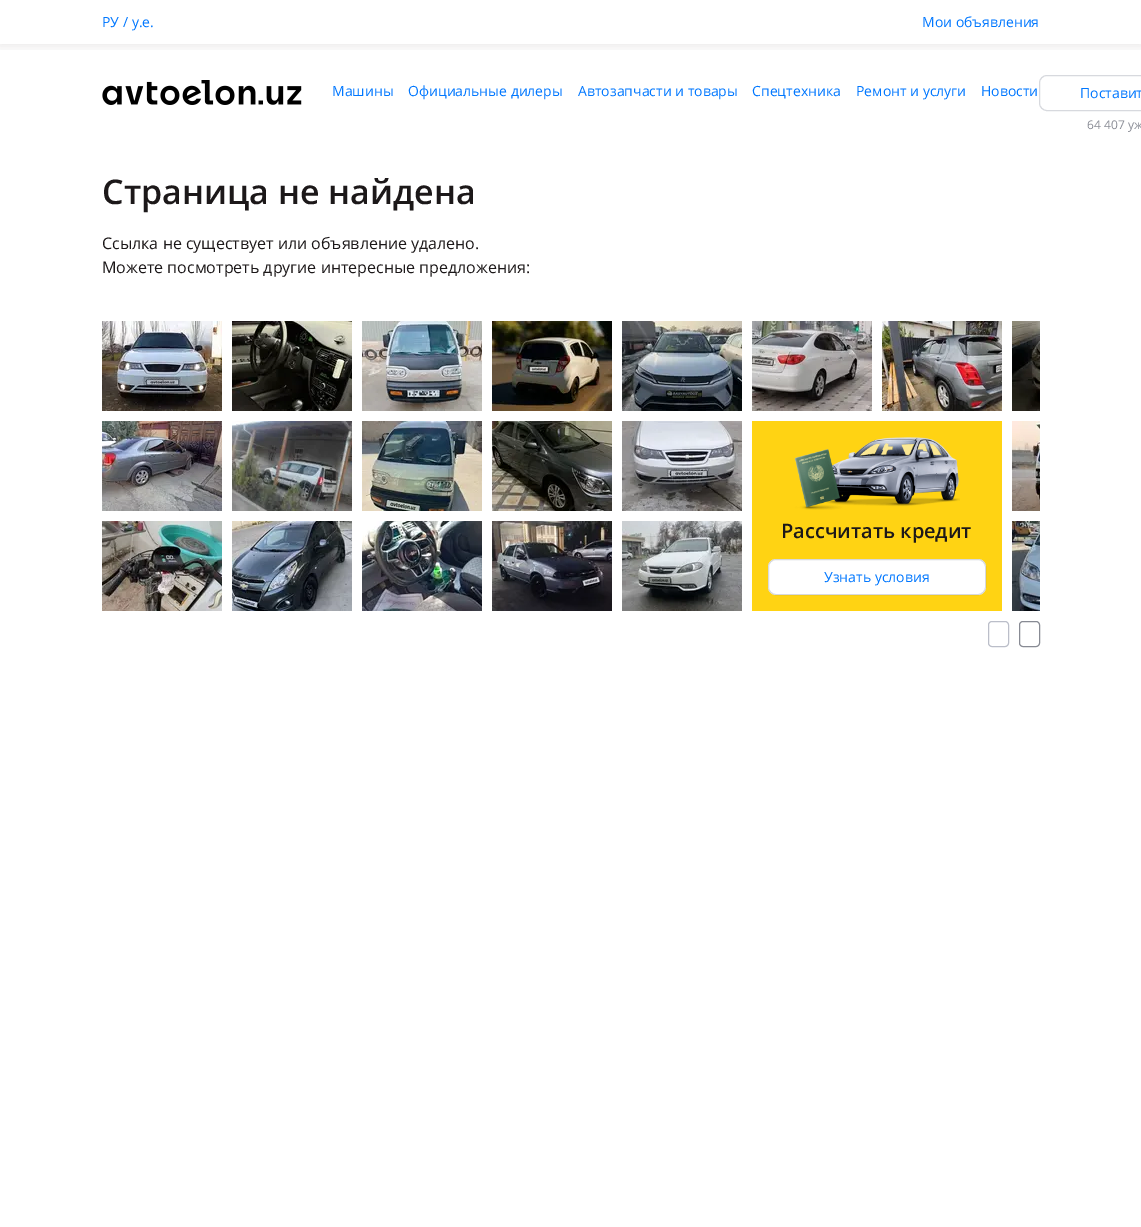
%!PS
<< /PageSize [1141 1227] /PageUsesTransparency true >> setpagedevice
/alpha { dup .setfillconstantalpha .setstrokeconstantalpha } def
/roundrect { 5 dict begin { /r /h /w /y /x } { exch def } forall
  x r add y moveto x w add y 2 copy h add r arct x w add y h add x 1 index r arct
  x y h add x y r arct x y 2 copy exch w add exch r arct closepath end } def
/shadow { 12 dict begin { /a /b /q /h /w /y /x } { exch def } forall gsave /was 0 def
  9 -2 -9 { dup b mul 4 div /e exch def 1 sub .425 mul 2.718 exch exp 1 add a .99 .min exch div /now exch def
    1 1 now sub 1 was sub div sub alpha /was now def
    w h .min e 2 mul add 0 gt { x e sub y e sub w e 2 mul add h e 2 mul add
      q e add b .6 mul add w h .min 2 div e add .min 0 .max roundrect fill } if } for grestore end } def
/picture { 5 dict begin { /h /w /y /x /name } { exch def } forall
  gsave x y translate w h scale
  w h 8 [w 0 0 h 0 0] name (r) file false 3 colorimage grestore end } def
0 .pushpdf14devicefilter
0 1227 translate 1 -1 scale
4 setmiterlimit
1 setgray
0 0 1141 1227 rectfill
gsave
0 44 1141 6 rectclip
0.11 0.094 0.098 setrgbcolor
0 2 1141 44 0 5 0.1 shadow
grestore
/OpenSans-Regular [14 0 0 -14 0 0] selectfont
0 0.467 1 setrgbcolor
102 27 moveto (РУ / у.е.) show
922 27 moveto (Мои объявления) show
(img1.rgb) 102 80 200 25 picture
332 96 moveto (Машины) show
408 96 moveto (Официальные дилеры) show
578 96 moveto (Автозапчасти и товары) show
752 96 moveto (Спецтехника) show
856 96 moveto (Ремонт и услуги) show
981 96 moveto (Новости) show
0.843 0.851 0.871 setrgbcolor
1039.5 75.5 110 35 7.5 roundrect stroke
0 0.467 1 setrgbcolor
1080 98 moveto (Поставит) show
/OpenSans-Regular [12 0 0 -12 0 0] selectfont
0.533 0.545 0.58 setrgbcolor
1087 129 moveto (64 407 уж) show
/OpenSans-SemiBold [34 0 0 -34 0 0] selectfont
0.11 0.094 0.098 setrgbcolor
102 204 moveto (Страница не найдена) show
/OpenSans-Regular [16 0 0 -16 0 0] selectfont
102 249 moveto (Cсылка не существует или объявление удалено.) show
102 273 moveto (Можете посмотреть другие интересные предложения:) show
(img2.rgb) 102 321 120 90 picture
(img3.rgb) 232 321 120 90 picture
(img4.rgb) 362 321 120 90 picture
(img5.rgb) 492 321 120 90 picture
(img6.rgb) 622 321 120 90 picture
(img7.rgb) 752 321 120 90 picture
(img8.rgb) 882 321 120 90 picture
(img9.rgb) 1012 321 28 90 picture
(img10.rgb) 102 421 120 90 picture
(img11.rgb) 232 421 120 90 picture
(img12.rgb) 362 421 120 90 picture
(img13.rgb) 492 421 120 90 picture
(img14.rgb) 622 421 120 90 picture
(img15.rgb) 1012 421 28 90 picture
(img16.rgb) 102 521 120 90 picture
(img17.rgb) 232 521 120 90 picture
(img18.rgb) 362 521 120 90 picture
(img19.rgb) 492 521 120 90 picture
(img20.rgb) 622 521 120 90 picture
1 0.827 0.075 setrgbcolor
752 421 250 190 rectfill
(img21.rgb) 794 437 166 73 picture
/OpenSans-SemiBold [20 0 0 -20 0 0] selectfont
0.11 0.094 0.098 setrgbcolor
781 538 moveto (Рассчитать кредит) show
1 setgray
768 559 218 36 8 roundrect fill
0.23 alpha
0.314 0.357 0.443 setrgbcolor
768.5 559.5 217 35 7.5 roundrect stroke
/OpenSans-Regular [14 0 0 -14 0 0] selectfont
1 alpha
0 0.467 1 setrgbcolor
824 582 moveto (Узнать условия) show
(img22.rgb) 1012 521 28 90 picture
0.733 0.745 0.788 setrgbcolor
988.5 621.5 20 25 3.5 roundrect stroke
0.533 0.545 0.58 setrgbcolor
1019.5 621.5 20 25 3.5 roundrect stroke
.poppdf14devicefilter showpage
